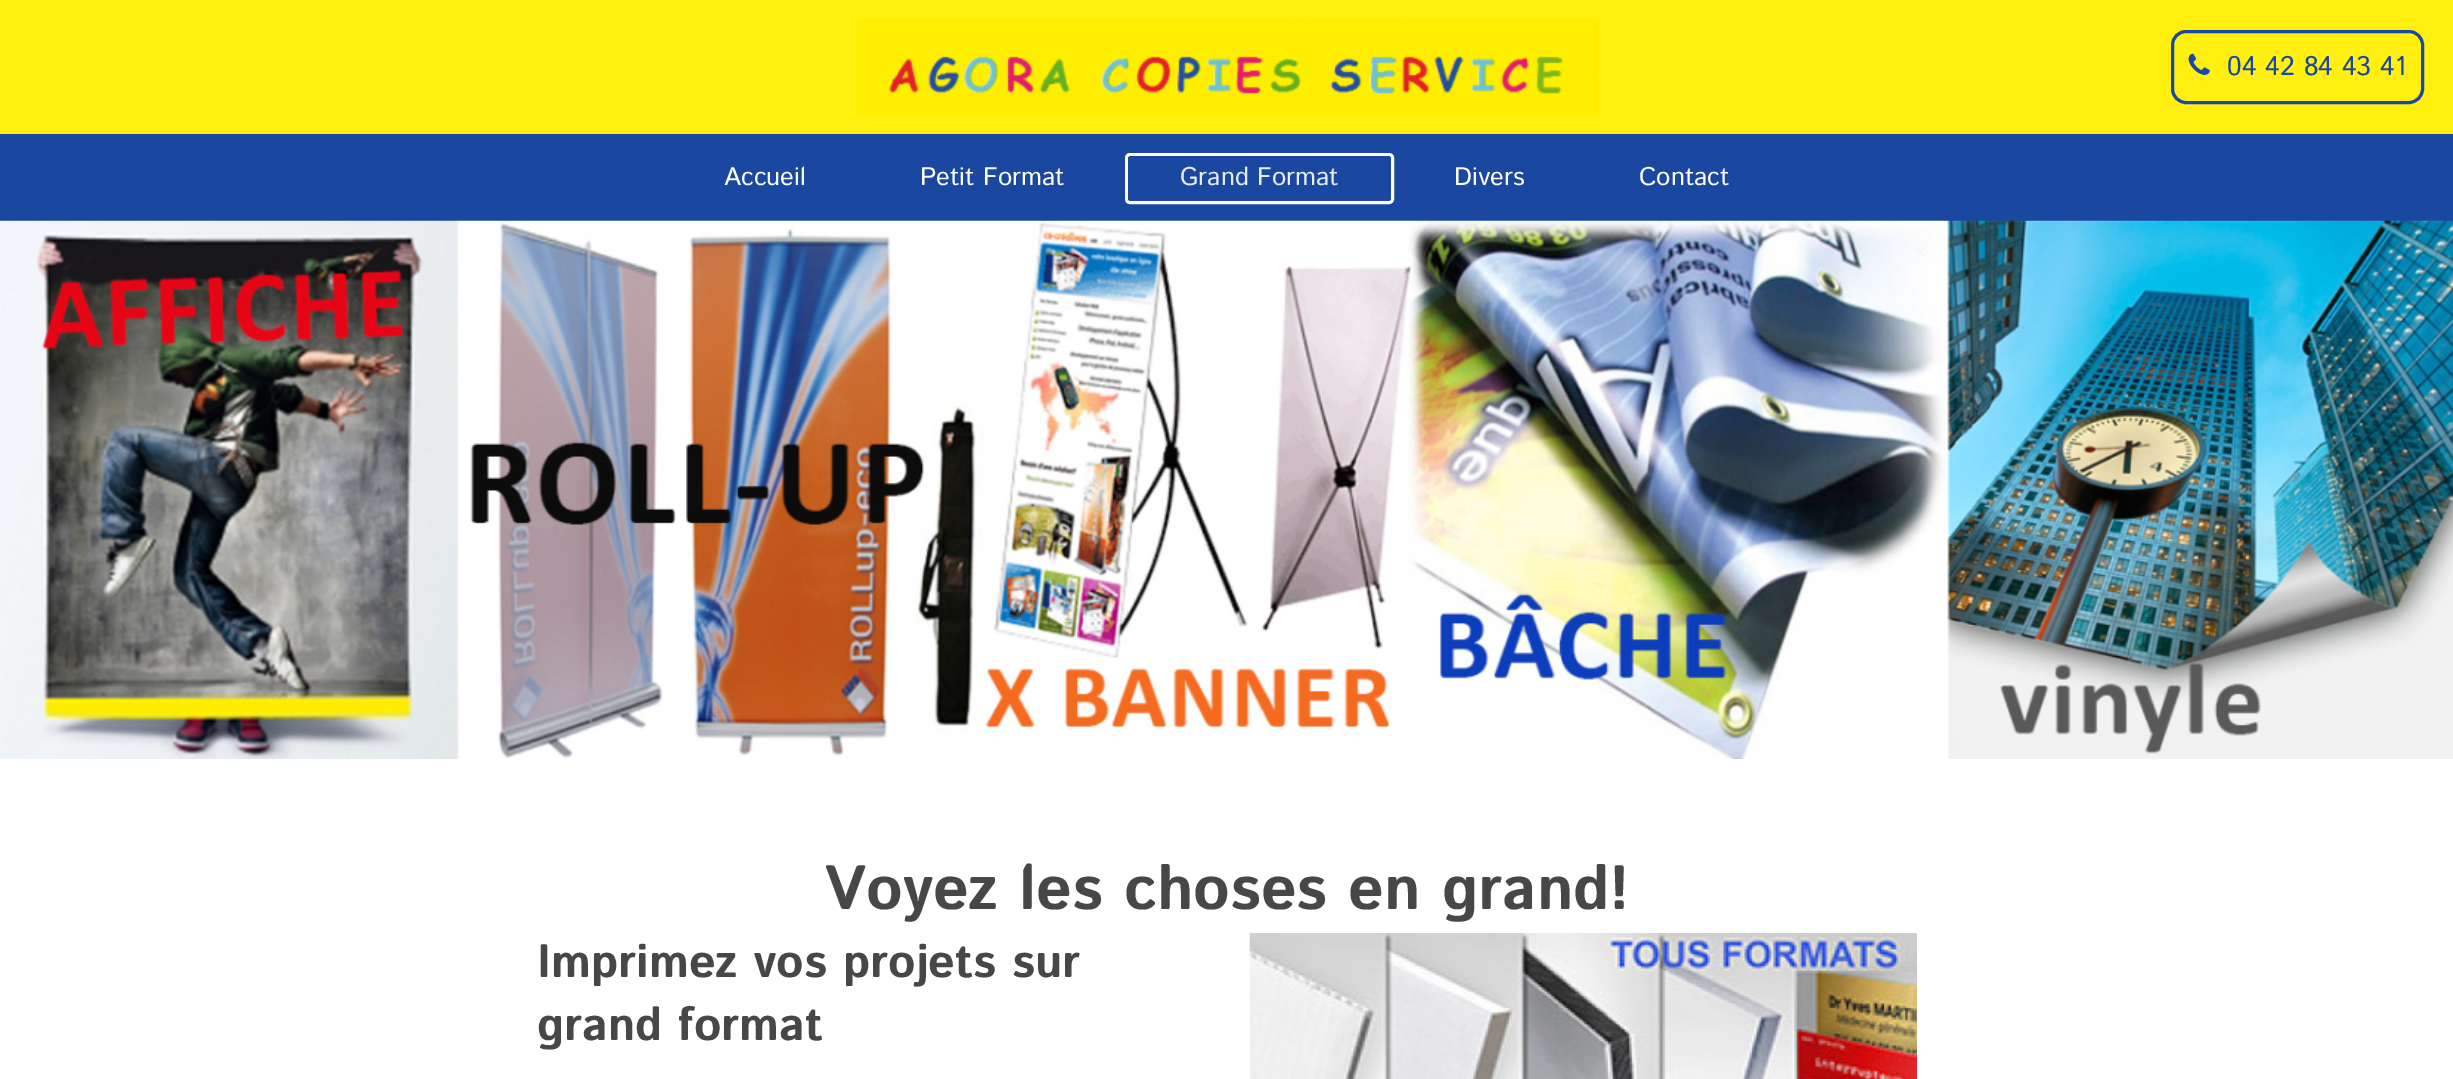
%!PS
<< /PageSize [2453 1079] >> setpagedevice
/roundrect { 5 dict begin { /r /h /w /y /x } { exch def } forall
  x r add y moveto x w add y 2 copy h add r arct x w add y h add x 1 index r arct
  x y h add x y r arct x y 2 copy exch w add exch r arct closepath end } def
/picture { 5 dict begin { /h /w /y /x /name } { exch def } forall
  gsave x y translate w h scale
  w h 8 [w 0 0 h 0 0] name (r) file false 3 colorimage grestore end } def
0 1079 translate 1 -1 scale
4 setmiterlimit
1 setgray
0 0 2453 1079 rectfill
1 0.941 0.059 setrgbcolor
0 0 2453 134 rectfill
0.102 0.282 0.627 setrgbcolor
3 setlinewidth
2172.5 31.5 250 71 13.5 roundrect stroke
(img1.rgb) 2188 53 22 22 picture
/IstokWeb-Regular [27 0 0 -27 0 0] selectfont
2227 75 moveto (04 42 84 43 41) show
0 134 2453 87 rectfill
(img2.rgb) 0 220 2453 539 picture
/IstokWeb-Bold [62.4 0 0 -62.4 0 0] selectfont
0.278 setgray
824 909 moveto (Voyez les choses en grand!) show
/IstokWeb-Bold [46.75 0 0 -46.75 0 0] selectfont
537 977 moveto (Imprimez vos projets sur) show
537 1040 moveto (grand format) show
(img3.rgb) 1249 933 668 146 picture
(img4.rgb) 856 18 743 98 picture
/IstokWeb-Regular [25.5 0 0 -25.5 0 0] selectfont
1 setgray
724 185 moveto (Accueil) show
920 185 moveto (Petit Format) show
1126.5 154.5 266 48 3.5 roundrect stroke
0.102 0.282 0.627 setrgbcolor
1128 156 263 45 3 roundrect fill
0.91 0.929 0.965 setrgbcolor
1180 185 moveto (Grand Format) show
1 setgray
1454 185 moveto (Divers) show
1639 185 moveto (Contact) show
showpage
